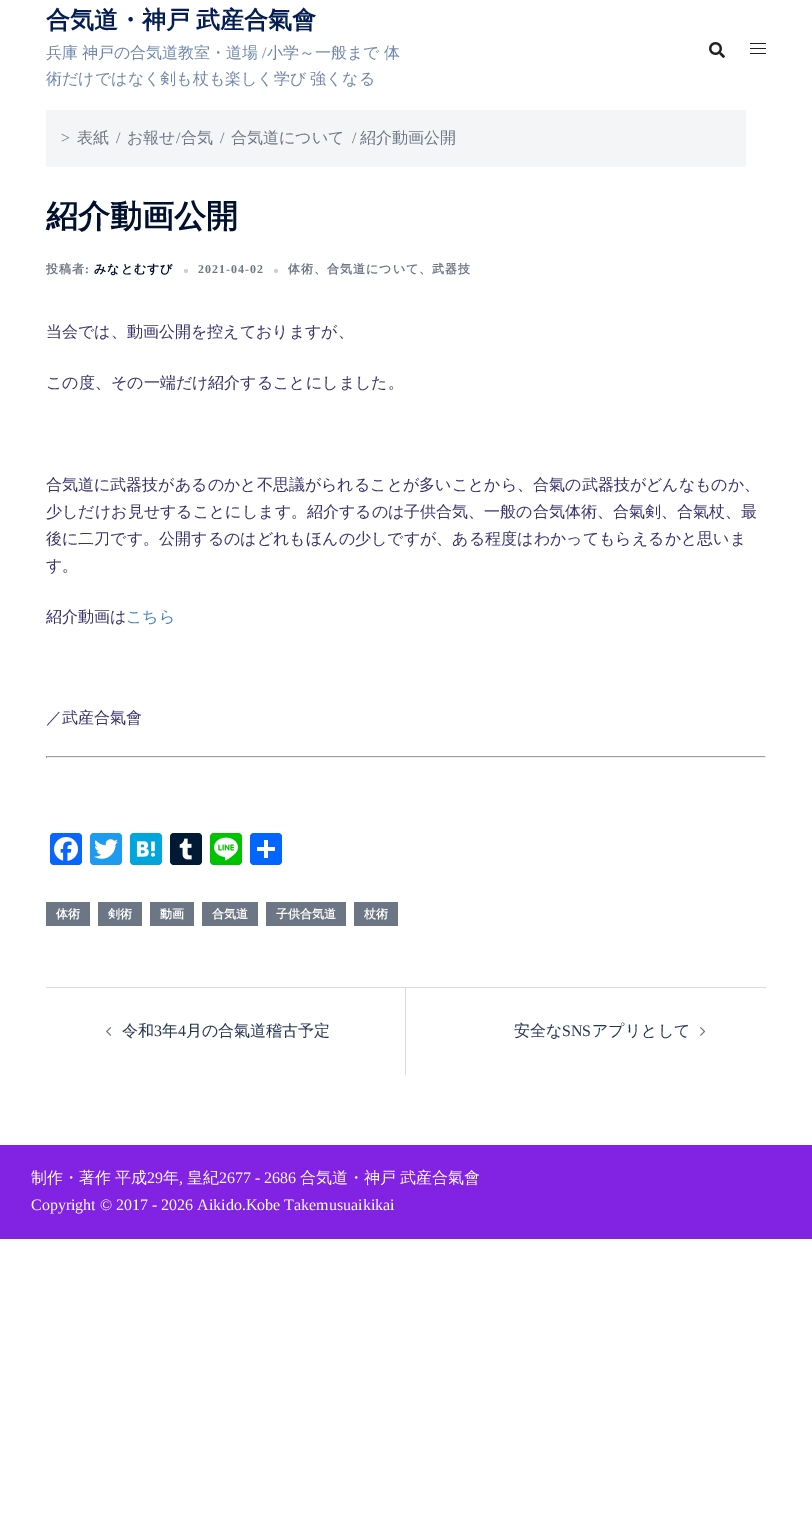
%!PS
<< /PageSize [812 1522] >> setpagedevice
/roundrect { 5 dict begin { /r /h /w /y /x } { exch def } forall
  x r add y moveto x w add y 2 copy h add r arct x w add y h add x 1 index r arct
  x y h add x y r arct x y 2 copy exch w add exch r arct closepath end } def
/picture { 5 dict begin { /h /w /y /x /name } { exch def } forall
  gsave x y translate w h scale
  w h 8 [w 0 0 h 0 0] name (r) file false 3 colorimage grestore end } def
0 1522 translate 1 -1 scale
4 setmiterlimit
1 setgray
0 0 812 1522 rectfill
/WenQuanYiZenHei-Bold [24 0 0 -24 0 0] selectfont
0.016 0.114 0.329 setrgbcolor
46 28 moveto -1 0 32 (合気道・神戸 武産合氣會) widthshow
/WenQuanYiZenHei-Medium [16 0 0 -16 0 0] selectfont
0.439 0.529 0.667 setrgbcolor
46 58 moveto -1 0 32 (兵庫 神戸の合気道教室・道場) widthshow
/LiberationSerif-Regular [16 0 0 -16 0 0] selectfont
262 58 moveto (/) show
/WenQuanYiZenHei-Medium [16 0 0 -16 0 0] selectfont
267 58 moveto -1 0 32 (小学～一般まで 体) widthshow
46 84 moveto -1 0 32 (術だけではなく剣も杖も楽しく学び 強くなる) widthshow
(img1.rgb) 709 42 16 16 picture
0.129 setgray
750 43 16 1 rectfill
750 48 16 1 rectfill
750 53 16 1 rectfill
0.957 0.961 0.969 setrgbcolor
46 110 700 57 rectfill
/LiberationSerif-Regular [16 0 0 -16 0 0] selectfont
0.427 0.463 0.522 setrgbcolor
61 143 moveto (>) show
/WenQuanYiZenHei-Medium [16 0 0 -16 0 0] selectfont
77 143 moveto (表紙) show
/LiberationSerif-Regular [16 0 0 -16 0 0] selectfont
116 143 moveto (/) show
/WenQuanYiZenHei-Medium [16 0 0 -16 0 0] selectfont
127 143 moveto (お報せ) show
/LiberationSerif-Regular [16 0 0 -16 0 0] selectfont
176 143 moveto (/) show
/WenQuanYiZenHei-Medium [16 0 0 -16 0 0] selectfont
181 143 moveto (合気) show
/LiberationSerif-Regular [16 0 0 -16 0 0] selectfont
220 143 moveto (/) show
/WenQuanYiZenHei-Medium [16 0 0 -16 0 0] selectfont
231 143 moveto (合気道について) show
/LiberationSerif-Regular [16 0 0 -16 0 0] selectfont
352 143 moveto (/) show
/WenQuanYiZenHei-Medium [16 0 0 -16 0 0] selectfont
360 143 moveto (紹介動画公開) show
/WenQuanYiZenHei-Bold [32 0 0 -32 0 0] selectfont
0 0.063 0.18 setrgbcolor
46 227 moveto (紹介動画公開) show
/WenQuanYiZenHei-Bold [12 0 0 -12 0 0] selectfont
0.427 0.463 0.522 setrgbcolor
46 273 moveto 1 0 (投稿者) ashow
/LiberationSerif-Bold [12 0 0 -12 0 0] selectfont
85 273 moveto 1 0 (:) ashow
/WenQuanYiZenHei-Bold [12 0 0 -12 0 0] selectfont
0 0.063 0.18 setrgbcolor
94 273 moveto 1 0 (みなとむすび) ashow
0.8 0.812 0.835 setrgbcolor
newpath 186 271 2 0 360 arc closepath fill
/LiberationSerif-Bold [12 0 0 -12 0 0] selectfont
0.427 0.463 0.522 setrgbcolor
198 273 moveto 1 0 (2021-04-02) ashow
0.8 0.812 0.835 setrgbcolor
newpath 276 271 2 0 360 arc closepath fill
/WenQuanYiZenHei-Bold [12 0 0 -12 0 0] selectfont
0.427 0.463 0.522 setrgbcolor
288 273 moveto 1 0 (体術、合気道について、武器技) ashow
/WenQuanYiZenHei-Medium [16 0 0 -16 0 0] selectfont
0.212 0.2 0.427 setrgbcolor
46 337 moveto (当会では、動画公開を控えておりますが、) show
46 388 moveto (この度、その一端だけ紹介することにしました。) show
46 490 moveto (合気道に武器技があるのかと不思議がられることが多いことから、合氣の武器技がどんなものか、) show
46 517 moveto (少しだけお見せすることにします。紹介するのは子供合気、一般の合気体術、合氣剣、合氣杖、最) show
46 544 moveto (後に二刀です。公開するのはどれもほんの少しですが、ある程度はわかってもらえるかと思いま) show
46 571 moveto (す。) show
46 622 moveto (紹介動画は) show
0.263 0.518 0.757 setrgbcolor
126 622 moveto (こちら) show
0.212 0.2 0.427 setrgbcolor
46 723 moveto (／武産合氣會) show
0.624 setgray
46 756 720 1 rectfill
0.933 setgray
765 756 1 2 rectfill
46 757 720 1 rectfill
0.624 setgray
46 756 1 2 rectfill
0.031 0.4 1 setrgbcolor
50 833 32 32 4 roundrect fill
(img2.rgb) 54 837 24 24 picture
0.114 0.608 0.941 setrgbcolor
90 833 32 32 4 roundrect fill
(img3.rgb) 94 839 24 20 picture
0 0.651 0.859 setrgbcolor
130 833 32 32 4 roundrect fill
(img4.rgb) 136 841 19 16 picture
0 0.098 0.208 setrgbcolor
170 833 32 32 4 roundrect fill
(img5.rgb) 179 838 13 22 picture
0 0.765 0 setrgbcolor
210 833 32 32 4 roundrect fill
(img6.rgb) 214 837 24 24 picture
0.004 0.4 1 setrgbcolor
250 833 32 32 4 roundrect fill
1 setgray
264 840 4 18 rectfill
257 847 18 4 rectfill
0.427 0.463 0.522 setrgbcolor
46 902 44 24 rectfill
/WenQuanYiZenHei-Bold [12 0 0 -12 0 0] selectfont
1 setgray
56 918 moveto (体術) show
0.427 0.463 0.522 setrgbcolor
98 902 44 24 rectfill
1 setgray
108 918 moveto (剣術) show
0.427 0.463 0.522 setrgbcolor
150 902 44 24 rectfill
1 setgray
160 918 moveto (動画) show
0.427 0.463 0.522 setrgbcolor
202 902 56 24 rectfill
1 setgray
212 918 moveto (合気道) show
0.427 0.463 0.522 setrgbcolor
266 902 80 24 rectfill
1 setgray
276 918 moveto (子供合気道) show
0.427 0.463 0.522 setrgbcolor
354 902 44 24 rectfill
1 setgray
364 918 moveto (杖術) show
0.859 setgray
46 987 720 1 rectfill
405 988 1 87 rectfill
(img7.rgb) 106 1027 6 9 picture
/WenQuanYiZenHei-Medium [16 0 0 -16 0 0] selectfont
0.137 0.204 0.322 setrgbcolor
122 1036 moveto (令和) show
/LiberationSerif-Regular [16 0 0 -16 0 0] selectfont
154 1036 moveto (3) show
/WenQuanYiZenHei-Medium [16 0 0 -16 0 0] selectfont
162 1036 moveto (年) show
/LiberationSerif-Regular [16 0 0 -16 0 0] selectfont
178 1036 moveto (4) show
/WenQuanYiZenHei-Medium [16 0 0 -16 0 0] selectfont
186 1036 moveto (月の合氣道稽古予定) show
514 1036 moveto (安全な) show
/LiberationSerif-Regular [16 0 0 -16 0 0] selectfont
562 1036 moveto (SNS) show
/WenQuanYiZenHei-Medium [16 0 0 -16 0 0] selectfont
592 1036 moveto (アプリとして) show
(img8.rgb) 700 1027 6 9 picture
0.51 0.133 0.886 setrgbcolor
0 1145 812 94 rectfill
1 setgray
31 1183 moveto (制作・著作) show
115 1183 moveto (平成) show
/LiberationSerif-Regular [16 0 0 -16 0 0] selectfont
147 1183 moveto (29) show
/WenQuanYiZenHei-Medium [16 0 0 -16 0 0] selectfont
163 1183 moveto (年) show
/LiberationSerif-Regular [16 0 0 -16 0 0] selectfont
179 1183 moveto (,) show
/WenQuanYiZenHei-Medium [16 0 0 -16 0 0] selectfont
187 1183 moveto (皇紀) show
/LiberationSerif-Regular [16 0 0 -16 0 0] selectfont
219 1183 moveto (2677 - 2686) show
/WenQuanYiZenHei-Medium [16 0 0 -16 0 0] selectfont
300 1183 moveto -1 0 32 (合気道・神戸 武産合氣會) widthshow
/LiberationSerif-Regular [16 0 0 -16 0 0] selectfont
31 1210 moveto (Copyright © 2017 - 2026 Aikido.Kobe Takemusuaikikai) show
showpage
